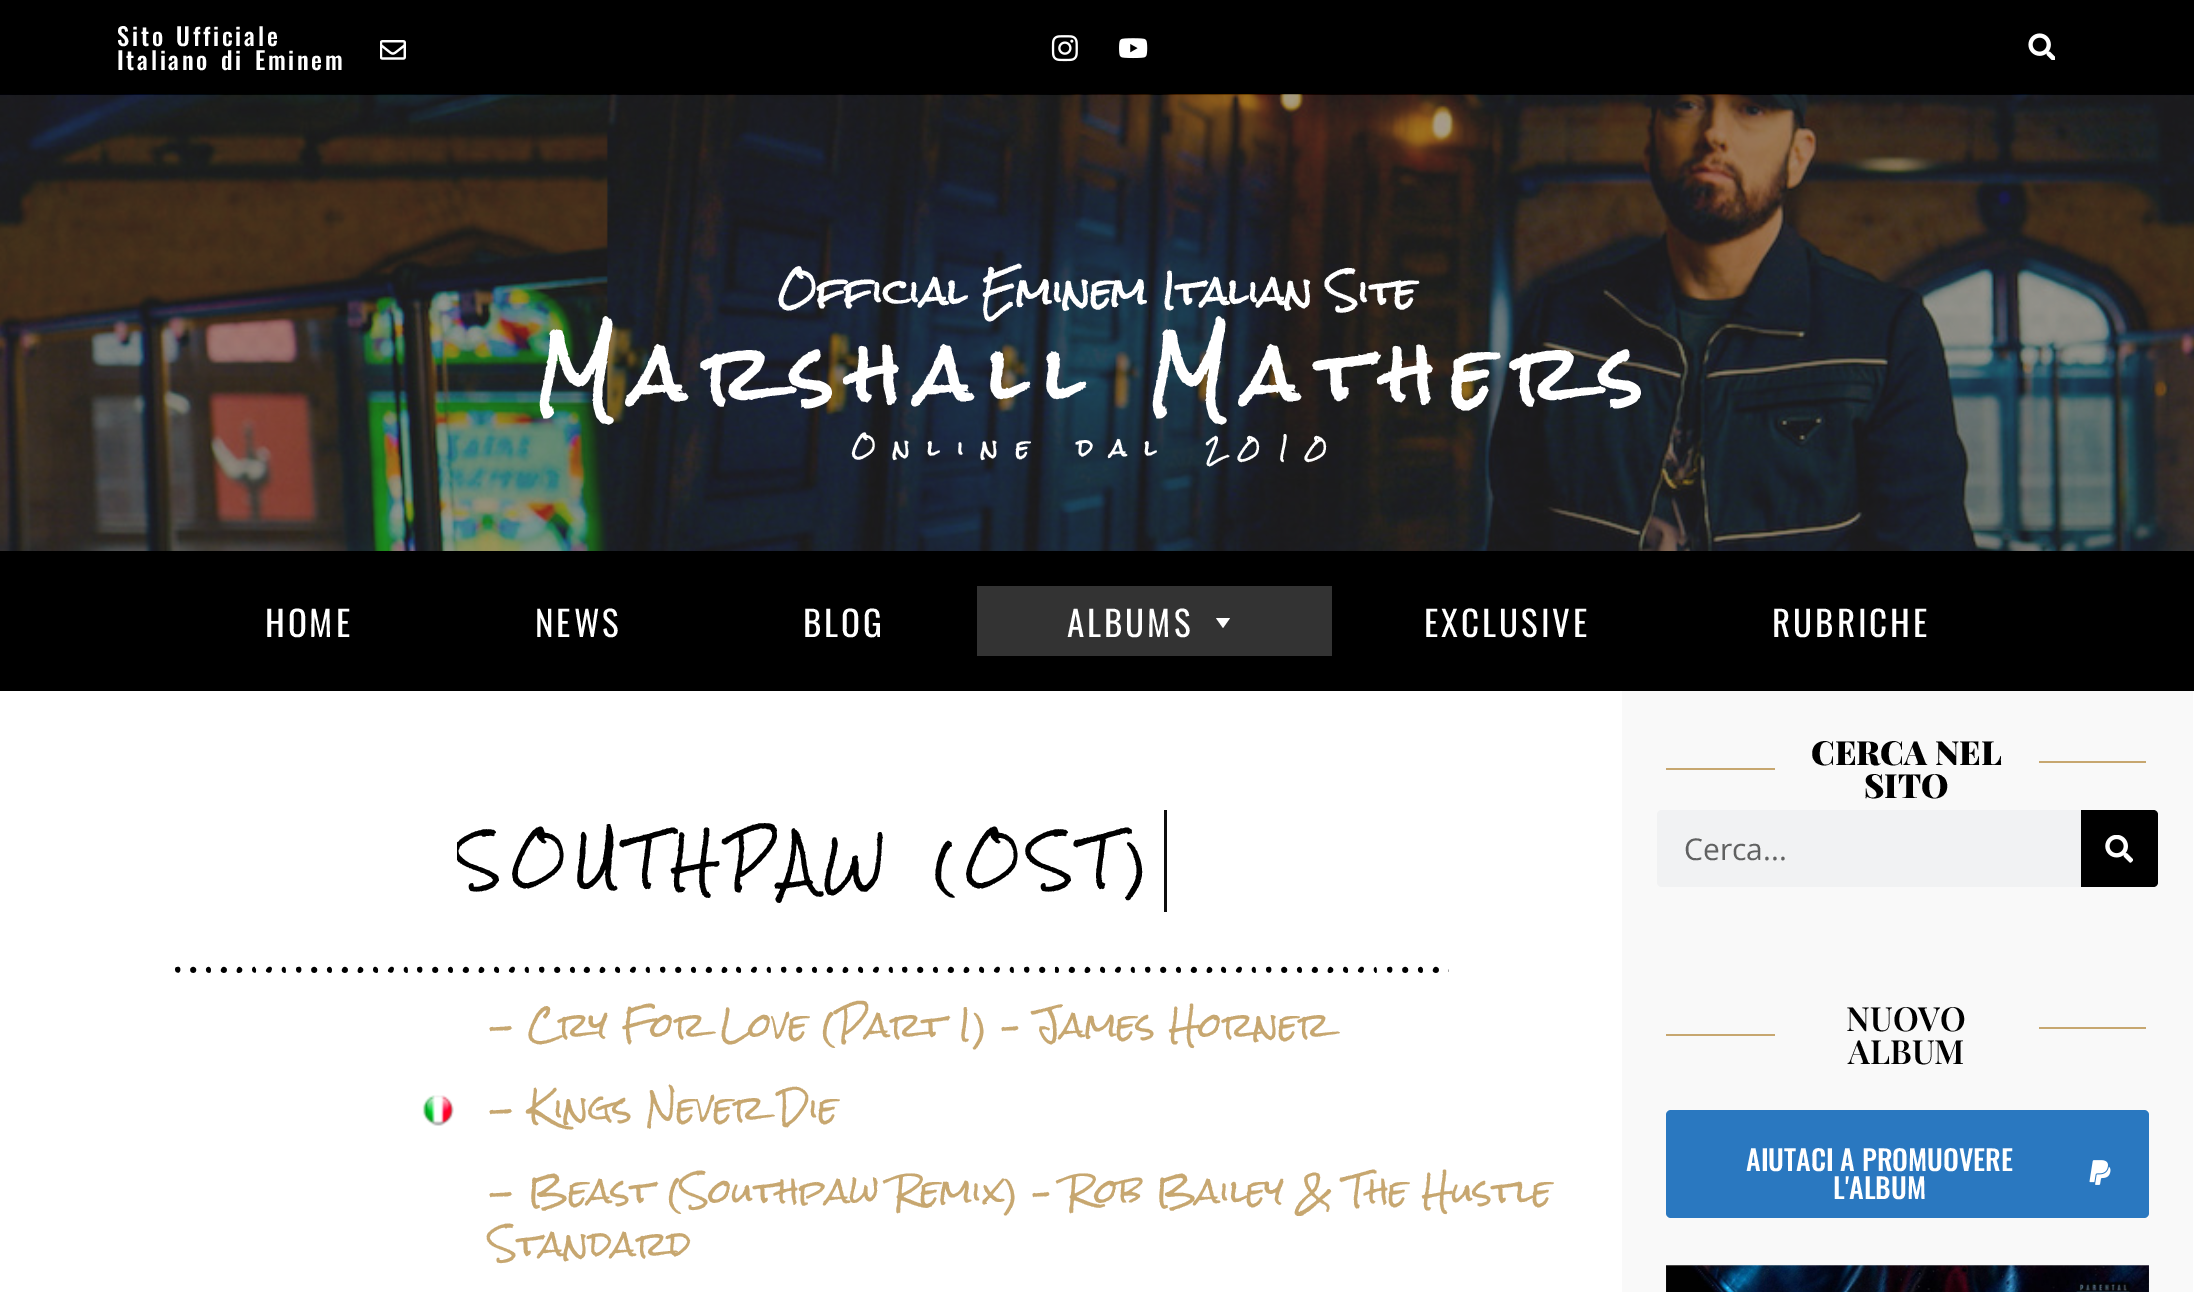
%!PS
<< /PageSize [2194 1292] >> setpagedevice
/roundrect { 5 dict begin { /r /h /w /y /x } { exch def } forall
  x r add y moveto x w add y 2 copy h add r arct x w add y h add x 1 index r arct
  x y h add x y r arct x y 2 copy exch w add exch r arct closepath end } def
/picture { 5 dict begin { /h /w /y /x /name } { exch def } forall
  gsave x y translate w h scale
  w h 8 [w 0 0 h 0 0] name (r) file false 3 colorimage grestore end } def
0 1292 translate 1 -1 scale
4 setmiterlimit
1 setgray
0 0 2194 1292 rectfill
0 setgray
0 0 2194 95 rectfill
/Oswald-Medium [24.5 0 0 -24.5 0 0] selectfont
1 setgray
117 46 moveto 2 0 32 2.75 0 (Sito Ufficiale) awidthshow
117 70 moveto 2 0 32 2.75 0 (Italiano di Eminem) awidthshow
(img1.rgb) 380 40 26 20 picture
(img2.rgb) 1051 35 27 27 picture
(img3.rgb) 1119 38 29 21 picture
(img4.rgb) 2028 33 27 27 picture
(img5.rgb) 0 94 2194 457 picture
/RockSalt-Bold [36.75 0 0 -36.75 0 0] selectfont
777 306 moveto (Official Eminem Italian Site) show
/RockSalt-Bold [73.5 0 0 -73.5 0 0] selectfont
535 403 moveto 17.5 0 (Marshall Mathers) ashow
/RockSalt-Bold [22.75 0 0 -22.75 0 0] selectfont
851 457 moveto 4 0 32 17.5 0 (Online dal) awidthshow
1205 457 moveto 17.5 0 (2010) ashow
0 setgray
0 551 2194 140 rectfill
/Oswald-Regular [35 0 0 -35 0 0] selectfont
1 setgray
265 637 moveto 3 0 (HOME) ashow
535 637 moveto 3 0 (NEWS) ashow
803 637 moveto 3 0 (BLOG) ashow
0.2 setgray
977 586 355 70 rectfill
1 setgray
1067 637 moveto 3 0 (ALBUMS) ashow
newpath 1230 618 moveto 1223 628 lineto 1216 618 lineto closepath fill
1424 637 moveto 3 0 (EXCLUSIVE) ashow
1772 637 moveto 3 0 (RUBRICHE) ashow
gsave
457 810 710 102 rectclip
/RockSalt-Regular [52.5 0 0 -52.5 0 0] selectfont
0 setgray
457 882 moveto 8.4 0 (SOUTHPAW) ashow
934 882 moveto 8.4 0 (\(OST\)) ashow
grestore
0.051 setgray
1164 810 3 102 rectfill
(img6.rgb) 175 966 1274 7 picture
/RockSalt-Regular [33.25 0 0 -33.25 0 0] selectfont
0.78 0.655 0.439 setrgbcolor
489 1038 moveto (- Cry For Love \(Part I\) – James Horner) show
(img7.rgb) 422 1095 32 31 picture
489 1121 moveto (- Kings Never Die) show
489 1204 moveto (- Beast \(Southpaw Remix\) – Rob Bailey & The Hustle) show
489 1257 moveto (Standard) show
0.976 setgray
1622 691 571 601 rectfill
/PlayfairDisplay-Black [33.25 0 0 -33.25 0 0] selectfont
0 setgray
1811 765 moveto (CERCA NEL) show
1864 798 moveto (SITO) show
0.78 0.655 0.439 setrgbcolor
2039 761 107 2 rectfill
1666 768 109 2 rectfill
0.945 0.949 0.953 setrgbcolor
1657 810 501 77 5 roundrect fill
/OpenSans-Regular [30 0 0 -30 0 0] selectfont
0.376 0.38 0.38 setrgbcolor
1684 860 moveto (Cerca...) show
0 setgray
newpath 2081 810 moveto 2153 810 lineto 2156 810 2158 812 2158 815 curveto 2158 882 lineto 2158 885 2156 887 2153 887 curveto 2081 887 lineto closepath fill
(img8.rgb) 2105 835 28 28 picture
/PlayfairDisplay-SemiBold [33.25 0 0 -33.25 0 0] selectfont
1846 1031 moveto (NUOVO) show
1848 1064 moveto (ALBUM) show
0.78 0.655 0.439 setrgbcolor
2039 1027 107 2 rectfill
1666 1034 109 2 rectfill
0.165 0.471 0.753 setrgbcolor
1666 1110 483 108 5 roundrect fill
/Oswald-Medium [28 0 0 -28 0 0] selectfont
1 setgray
1746 1171 moveto (AIUTACI A PROMUOVERE) show
1833 1199 moveto (L'ALBUM) show
(img9.rgb) 2089 1160 22 25 picture
(img10.rgb) 1666 1265 483 27 picture
showpage
